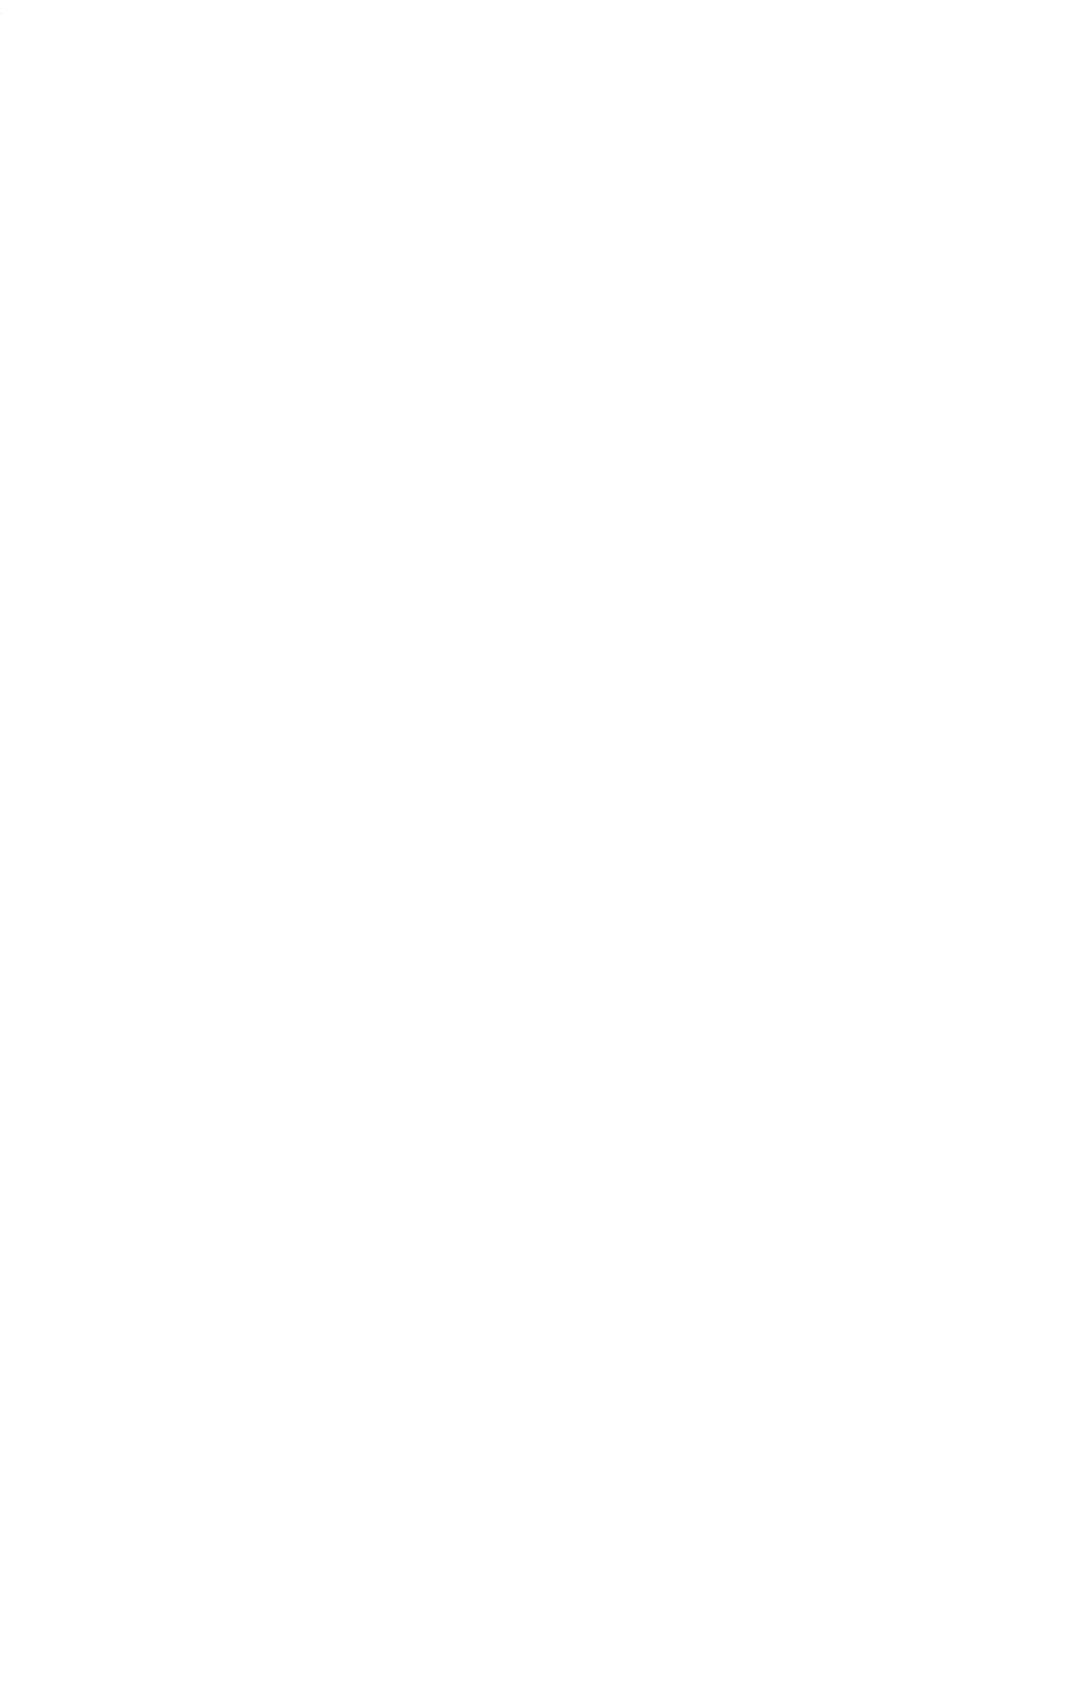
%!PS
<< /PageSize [1090 1704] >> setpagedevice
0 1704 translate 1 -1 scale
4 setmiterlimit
1 setgray
0 0 1090 1704 rectfill
0.871 0.878 0.98 setrgbcolor
0 13 1 1 rectfill
showpage
